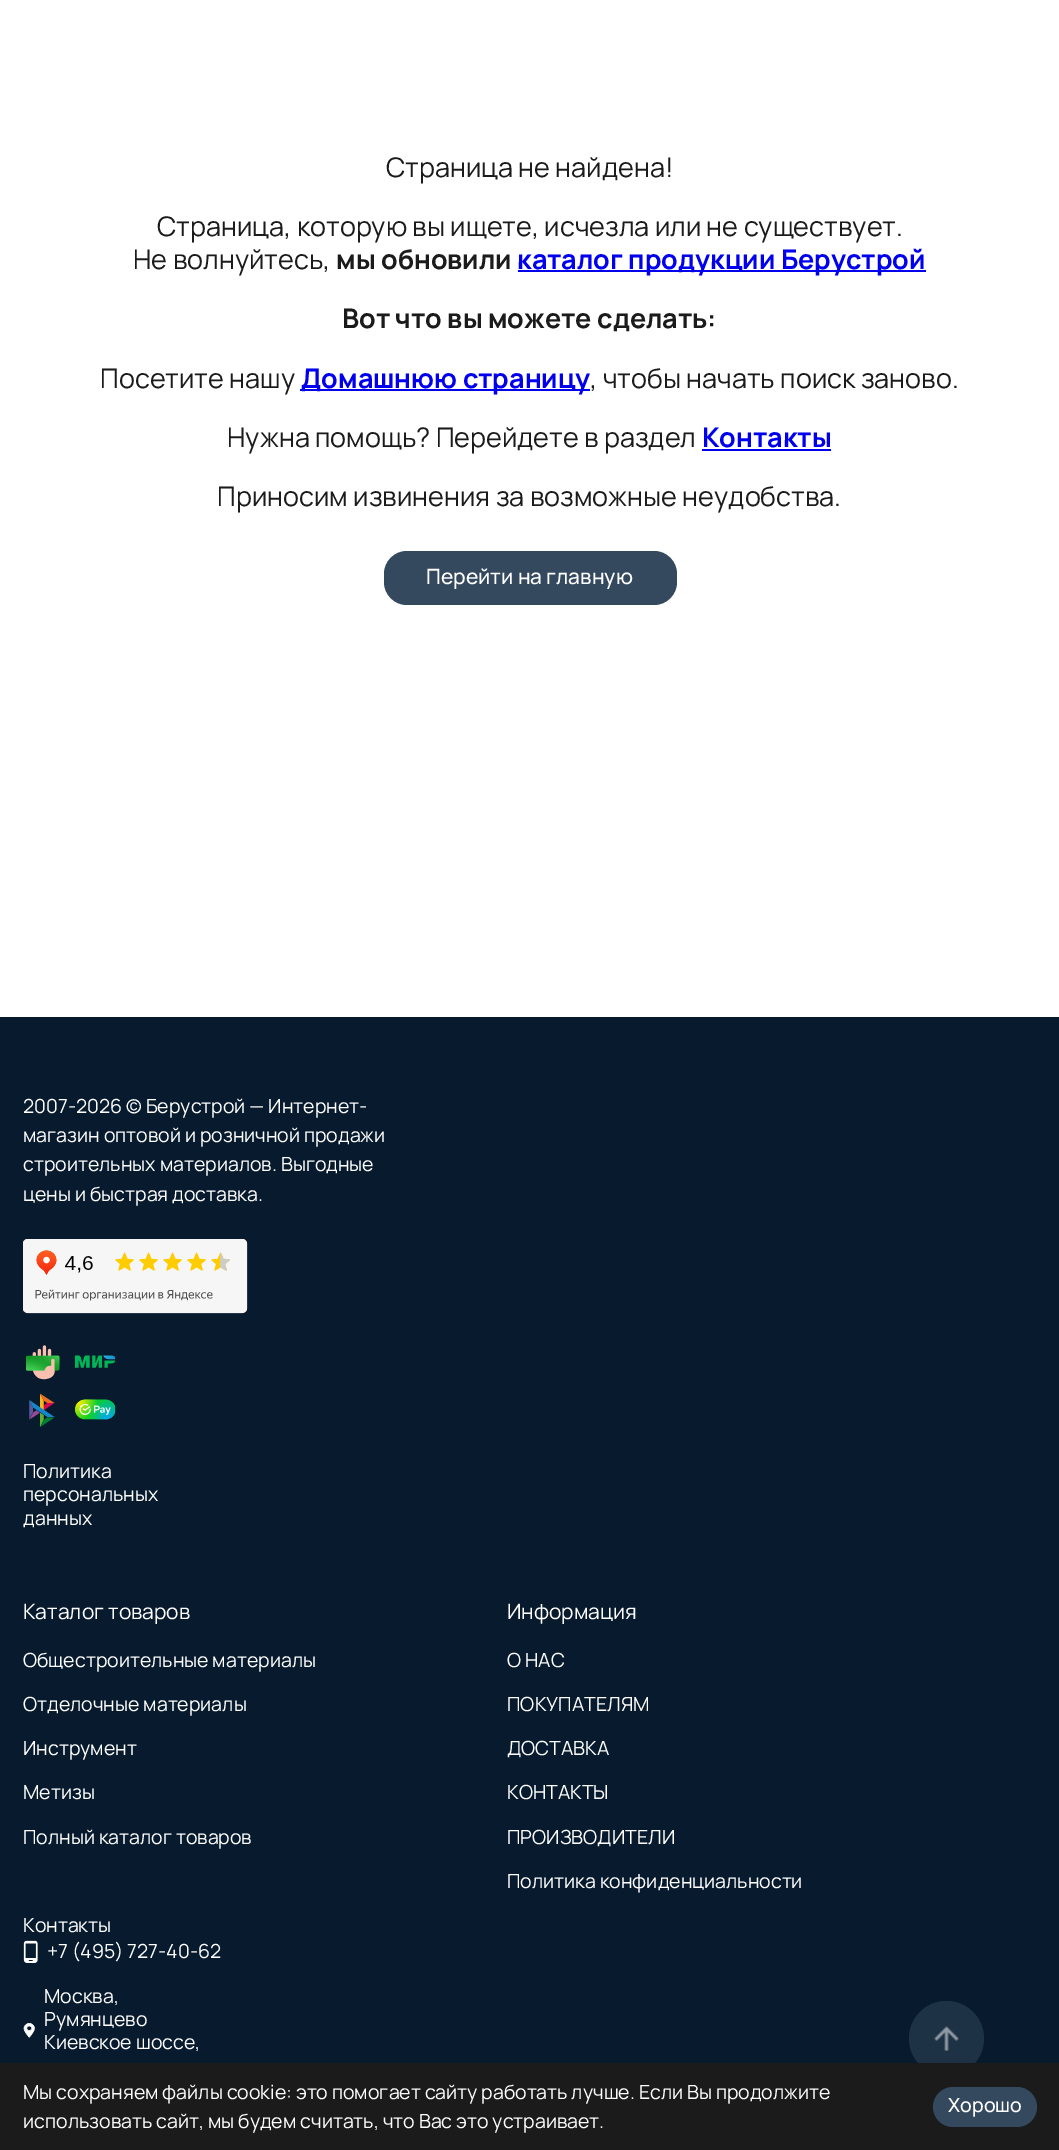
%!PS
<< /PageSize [1059 2150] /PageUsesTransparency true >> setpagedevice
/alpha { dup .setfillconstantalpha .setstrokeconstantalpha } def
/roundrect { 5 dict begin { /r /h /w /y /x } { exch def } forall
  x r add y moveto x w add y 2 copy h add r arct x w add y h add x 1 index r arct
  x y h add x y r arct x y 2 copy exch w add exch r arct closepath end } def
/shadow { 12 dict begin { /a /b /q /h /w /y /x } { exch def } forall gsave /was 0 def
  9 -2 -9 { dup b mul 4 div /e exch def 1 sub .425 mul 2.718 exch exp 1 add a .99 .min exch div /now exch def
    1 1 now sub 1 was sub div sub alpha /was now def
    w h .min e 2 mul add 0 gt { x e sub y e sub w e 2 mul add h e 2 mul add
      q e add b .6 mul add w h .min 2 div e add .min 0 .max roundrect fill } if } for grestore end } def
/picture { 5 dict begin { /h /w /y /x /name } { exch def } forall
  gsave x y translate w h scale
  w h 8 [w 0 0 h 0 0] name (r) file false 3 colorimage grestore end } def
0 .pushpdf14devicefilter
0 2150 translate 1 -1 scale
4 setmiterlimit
1 setgray
0 0 1059 2150 rectfill
/Manrope-Regular [27 0 0 -27 0 0] selectfont
0.106 setgray
386 177 moveto (Страница не найдена!) show
157 236 moveto (Страница, которую вы ищете, исчезла или не существует.) show
133 269 moveto (Не волнуйтесь,) show
/Manrope-Bold [27 0 0 -27 0 0] selectfont
336 269 moveto (мы обновили) show
0 0 0.933 setrgbcolor
518 270 408 2 rectfill
517 269 moveto (каталог продукции Берустрой) show
0.106 setgray
342 328 moveto (Вот что вы можете сделать:) show
/Manrope-Regular [27 0 0 -27 0 0] selectfont
100 388 moveto (Посетите нашу) show
0 0 0.933 setrgbcolor
300 389 290 2 rectfill
/Manrope-Bold [27 0 0 -27 0 0] selectfont
301 388 moveto (Домашнюю страницу) show
/Manrope-Regular [27 0 0 -27 0 0] selectfont
0.106 setgray
590 388 moveto (, чтобы начать поиск заново.) show
227 447 moveto (Нужна помощь? Перейдете в раздел) show
/Manrope-Bold [27 0 0 -27 0 0] selectfont
0 0 0.933 setrgbcolor
702 447 moveto (Контакты) show
702 449 129 2 rectfill
/Manrope-Regular [27 0 0 -27 0 0] selectfont
0.106 setgray
217 506 moveto (Приносим извинения за возможные неудобства.) show
0.204 0.286 0.369 setrgbcolor
384 551 293 54 23 roundrect fill
/Manrope-Medium [21 0 0 -21 0 0] selectfont
1 setgray
426 584 moveto (Перейти на главную) show
0.031 0.106 0.18 setrgbcolor
0 1017 1059 1046 rectfill
/Manrope-Regular [19.5 0 0 -19.5 0 0] selectfont
1 setgray
23 1113 moveto (2007-2026 © Берустрой — Интернет-) show
23 1142 moveto (магазин оптовой и розничной продажи) show
23 1171 moveto (строительных материалов. Выгодные) show
23 1201 moveto (цены и быстрая доставка.) show
(img1.rgb) 23 1239 225 75 picture
(img2.rgb) 26 1345 34 35 picture
(img3.rgb) 75 1355 41 13 picture
(img4.rgb) 29 1393 26 34 picture
(img5.rgb) 75 1399 41 21 picture
23 1478 moveto (Политика) show
23 1501 moveto (персональных) show
23 1525 moveto (данных) show
/Manrope-Regular [21 0 0 -21 0 0] selectfont
23 1619 moveto (Каталог товаров) show
/Manrope-Regular [19.5 0 0 -19.5 0 0] selectfont
23 1667 moveto (Общестроительные материалы) show
23 1711 moveto (Отделочные материалы) show
23 1755 moveto (Инструмент) show
23 1799 moveto (Метизы) show
23 1844 moveto (Полный каталог товаров) show
/Manrope-Regular [21 0 0 -21 0 0] selectfont
507 1619 moveto (Информация) show
/Manrope-Regular [19.5 0 0 -19.5 0 0] selectfont
507 1667 moveto (О НАС) show
507 1711 moveto (ПОКУПАТЕЛЯМ) show
507 1755 moveto (ДОСТАВКА) show
507 1799 moveto (КОНТАКТЫ) show
507 1844 moveto (ПРОИЗВОДИТЕЛИ) show
507 1888 moveto (Политика конфиденциальности) show
23 1932 moveto (Контакты) show
(img6.rgb) 23 1940 15 23 picture
47 1958 moveto (+7 \(495\) 727-40-62) show
(img7.rgb) 23 2023 12 15 picture
44 2003 moveto (Москва,) show
44 2026 moveto (Румянцево) show
44 2049 moveto (Киевское шоссе,) show
0.118 0.196 0.275 setrgbcolor
newpath 946.5 2038.5 37.5 0 360 arc closepath fill
(img8.rgb) 934 2026 25 25 picture
0 setgray
0 2063 1059 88 0 11 0.07 shadow
0.106 setgray
0 2063 1059 87 rectfill
1 setgray
23 2099 moveto (Мы сохраняем файлы cookie: это помогает сайту работать лучше. Если Вы продолжите) show
23 2128 moveto (использовать сайт, мы будем считать, что Вас это устраивает.) show
0.204 0.286 0.369 setrgbcolor
933 2087 104 40 20 roundrect fill
/Manrope-Medium [19.5 0 0 -19.5 0 0] selectfont
1 setgray
948 2112 moveto (Хорошо) show
.poppdf14devicefilter showpage
